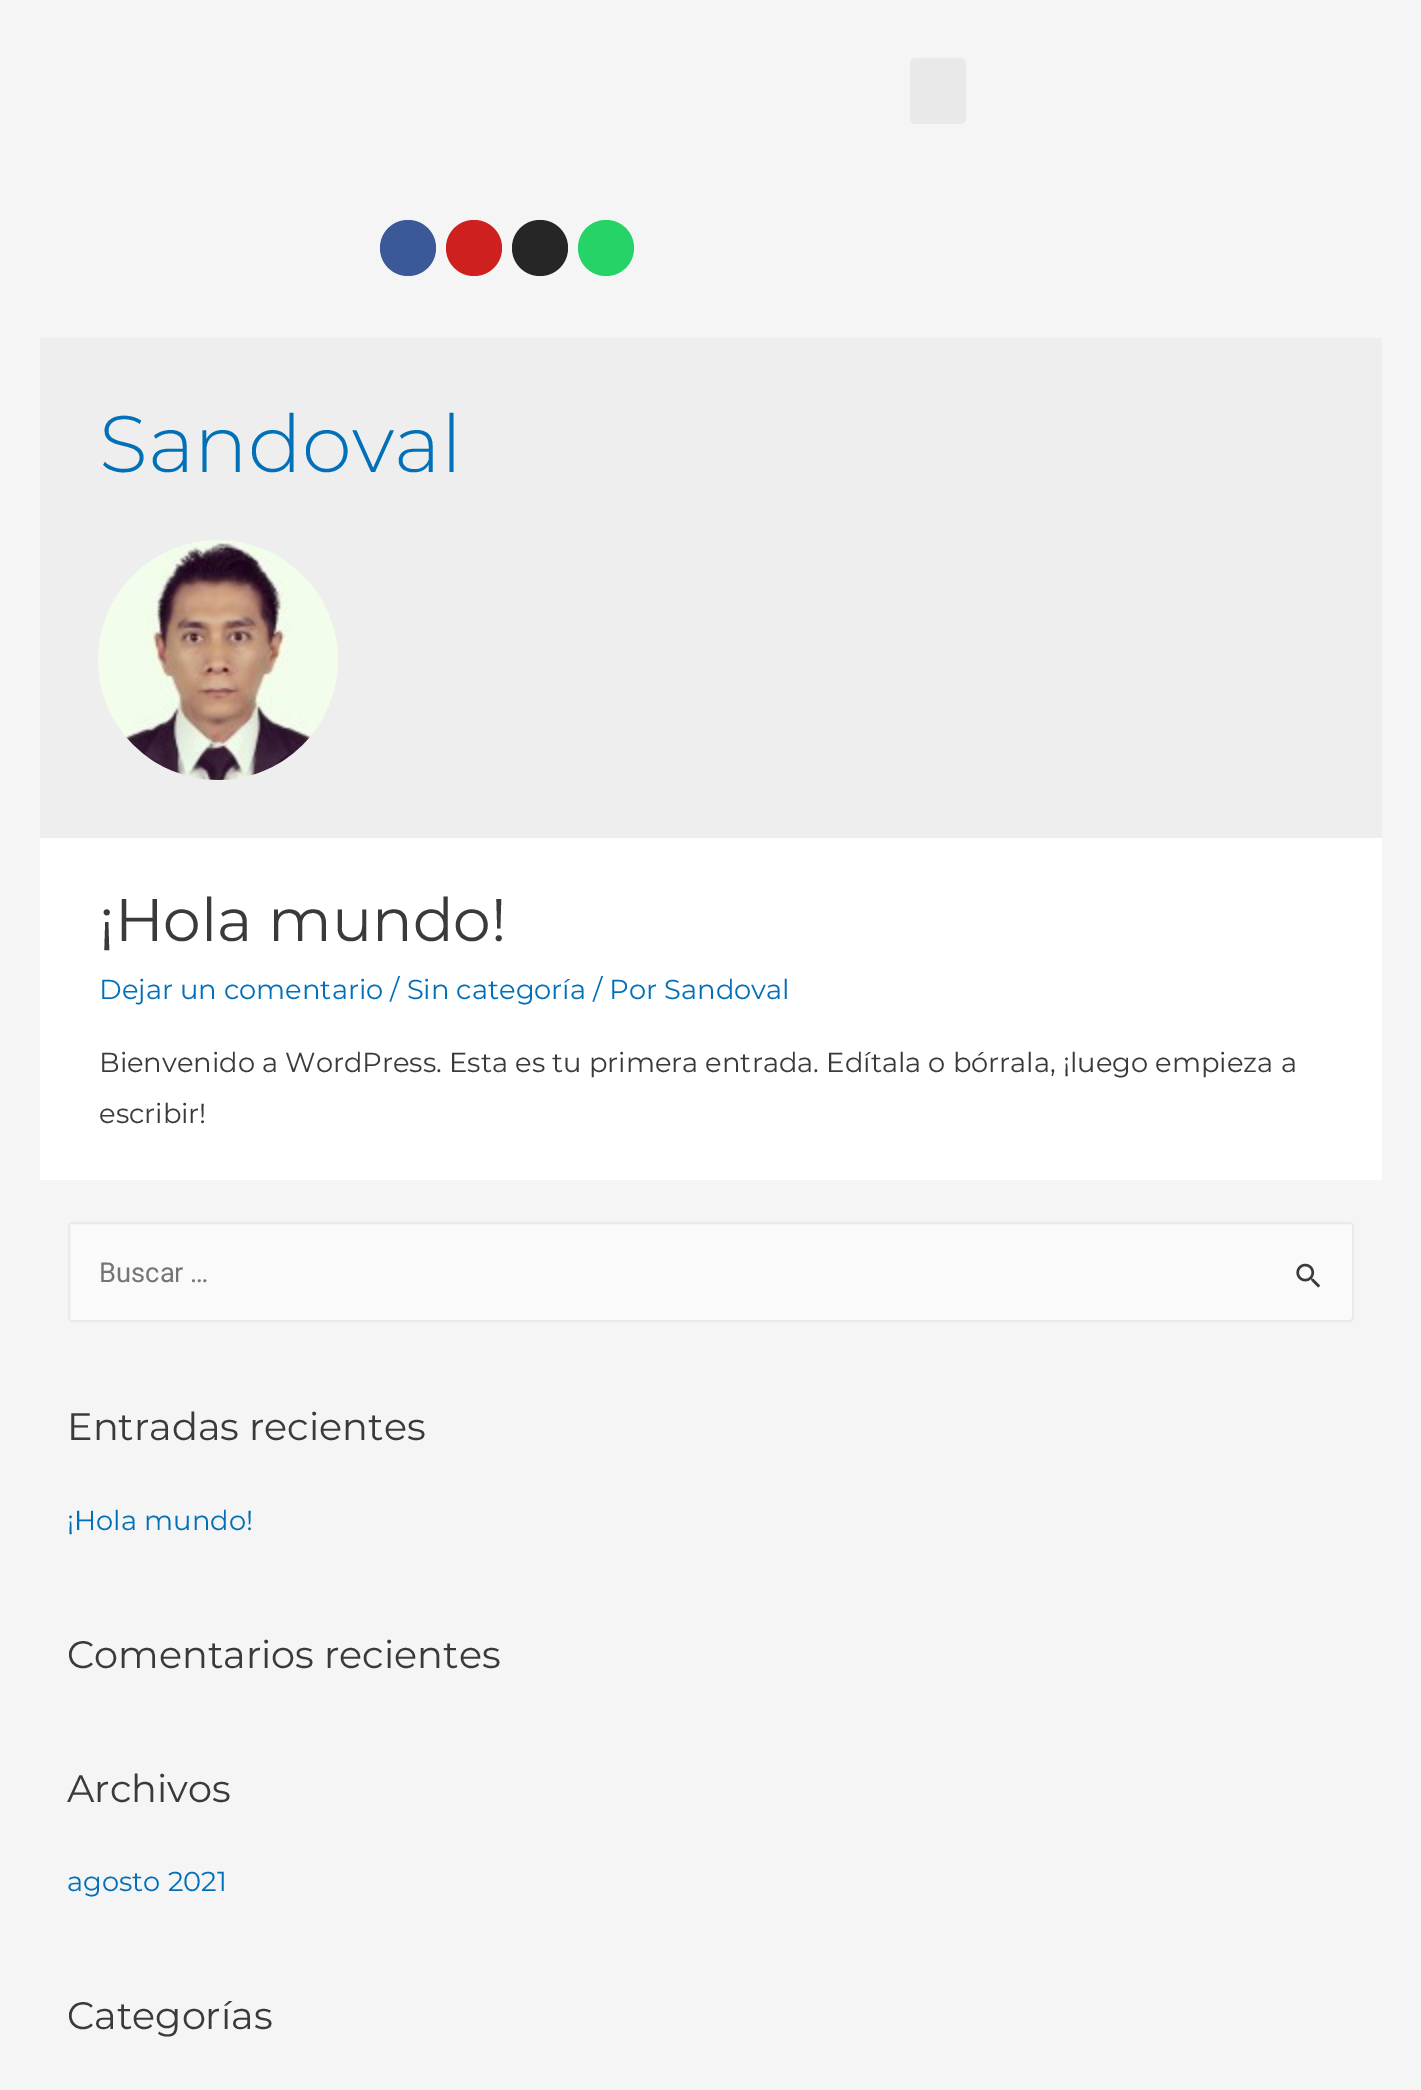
%!PS
<< /PageSize [1421 2090] >> setpagedevice
/roundrect { 5 dict begin { /r /h /w /y /x } { exch def } forall
  x r add y moveto x w add y 2 copy h add r arct x w add y h add x 1 index r arct
  x y h add x y r arct x y 2 copy exch w add exch r arct closepath end } def
/picture { 5 dict begin { /h /w /y /x /name } { exch def } forall
  gsave x y translate w h scale
  w h 8 [w 0 0 h 0 0] name (r) file false 3 colorimage grestore end } def
0 2090 translate 1 -1 scale
4 setmiterlimit
0.961 setgray
0 0 1421 2090 rectfill
0.914 setgray
910 58 56 66 6 roundrect fill
0.231 0.349 0.596 setrgbcolor
newpath 408 248 28 0 360 arc closepath fill
0.804 0.125 0.122 setrgbcolor
newpath 474 248 28 0 360 arc closepath fill
0.149 setgray
newpath 540 248 28 0 360 arc closepath fill
0.145 0.827 0.4 setrgbcolor
newpath 606 248 28 0 360 arc closepath fill
0.933 setgray
40 338 1342 500 rectfill
/Montserrat-Light [80 0 0 -80 0 0] selectfont
0.004 0.439 0.725 setrgbcolor
99 472 moveto (Sandoval) show
(img1.rgb) 98 540 240 240 picture
1 setgray
40 838 1342 342 rectfill
/Montserrat-Regular [60 0 0 -60 0 0] selectfont
0.227 setgray
99 941 moveto (¡Hola mundo!) show
/Montserrat-Regular [27.35 0 0 -27.35 0 0] selectfont
0.004 0.439 0.725 setrgbcolor
99 999 moveto (Dejar un comentario / Sin categoría / Por Sandoval) show
0.227 setgray
99 1072 moveto (Bienvenido a WordPress. Esta es tu primera entrada. Edítala o bórrala, ¡luego empieza a) show
99 1123 moveto (escribir!) show
0.98 setgray
69 1223 1284 98 3 roundrect gsave fill grestore
0.918 setgray
2 setlinewidth
stroke
/Roboto-Regular [27.35 0 0 -27.35 0 0] selectfont
0.459 setgray
99 1282 moveto (Buscar …) show
(img2.rgb) 1296 1263 24 25 picture
/Montserrat-Regular [38.25 0 0 -38.25 0 0] selectfont
0.227 setgray
67 1440 moveto (Entradas recientes) show
/Montserrat-Regular [27.35 0 0 -27.35 0 0] selectfont
0.004 0.439 0.725 setrgbcolor
67 1530 moveto (¡Hola mundo!) show
/Montserrat-Regular [38.25 0 0 -38.25 0 0] selectfont
0.227 setgray
67 1668 moveto (Comentarios recientes) show
67 1802 moveto (Archivos) show
/Montserrat-Regular [27.35 0 0 -27.35 0 0] selectfont
0.004 0.439 0.725 setrgbcolor
67 1891 moveto (agosto 2021) show
/Montserrat-Regular [38.25 0 0 -38.25 0 0] selectfont
0.227 setgray
67 2029 moveto (Categorías) show
showpage
